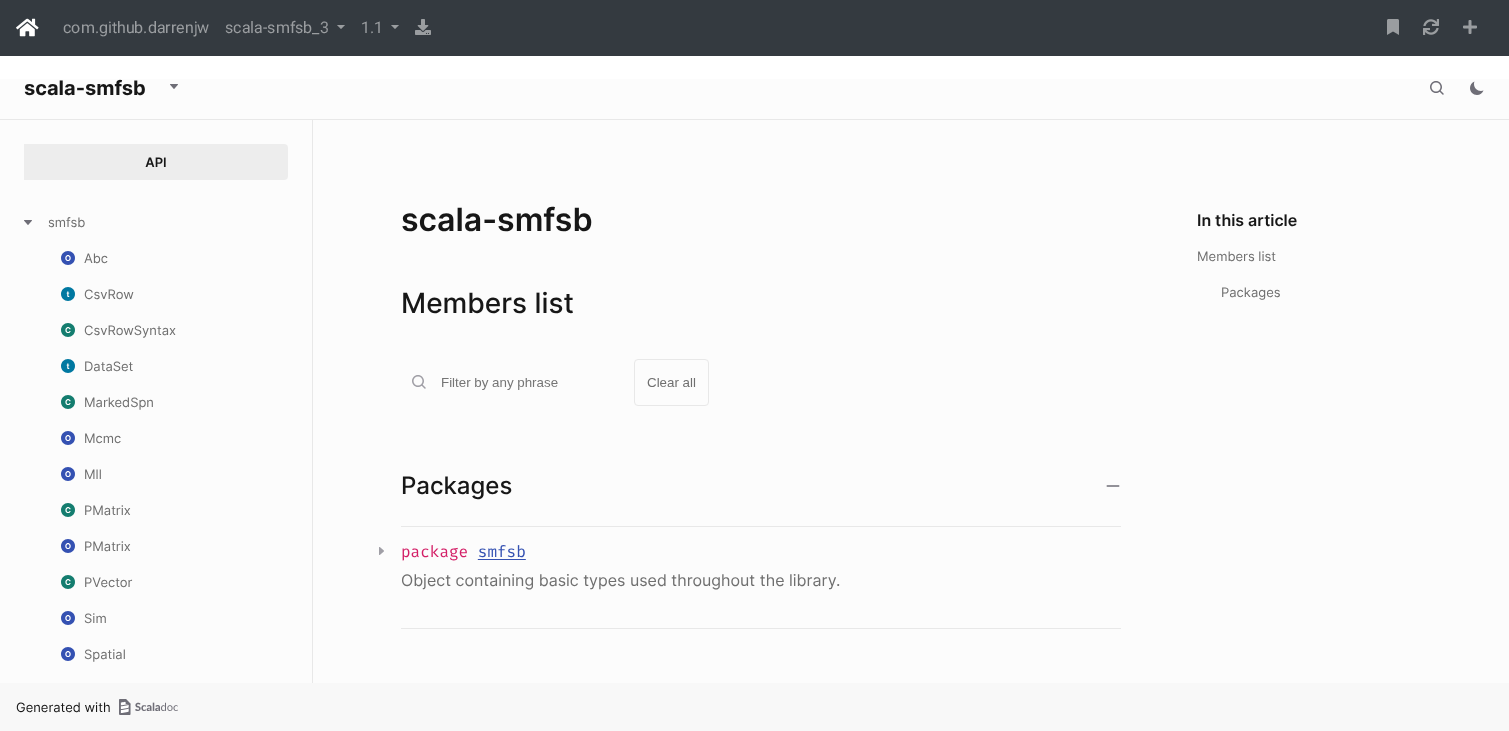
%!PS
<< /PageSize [1509 731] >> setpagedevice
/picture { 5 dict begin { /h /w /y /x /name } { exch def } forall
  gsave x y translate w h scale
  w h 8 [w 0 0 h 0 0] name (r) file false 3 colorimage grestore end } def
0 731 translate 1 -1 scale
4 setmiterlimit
1 setgray
0 0 1509 731 rectfill
0.204 0.227 0.251 setrgbcolor
0 0 1509 56 rectfill
(img1.rgb) 16 18 23 19 picture
/Roboto-Regular [16 0 0 -16 0 0] selectfont
0.604 0.616 0.627 setrgbcolor
63 33 moveto (com.github.darrenjw) show
225 33 moveto (scala-smfsb_3) show
newpath 337 25 moveto 345 25 lineto 341 29 lineto closepath fill
361 33 moveto (1.1) show
newpath 391 25 moveto 399 25 lineto 395 29 lineto closepath fill
(img2.rgb) 415 19 16 16 picture
(img3.rgb) 1387 19 12 16 picture
(img4.rgb) 1423 19 16 16 picture
(img5.rgb) 1463 20 14 14 picture
(img6.rgb) 0 79 1509 652 picture
showpage
